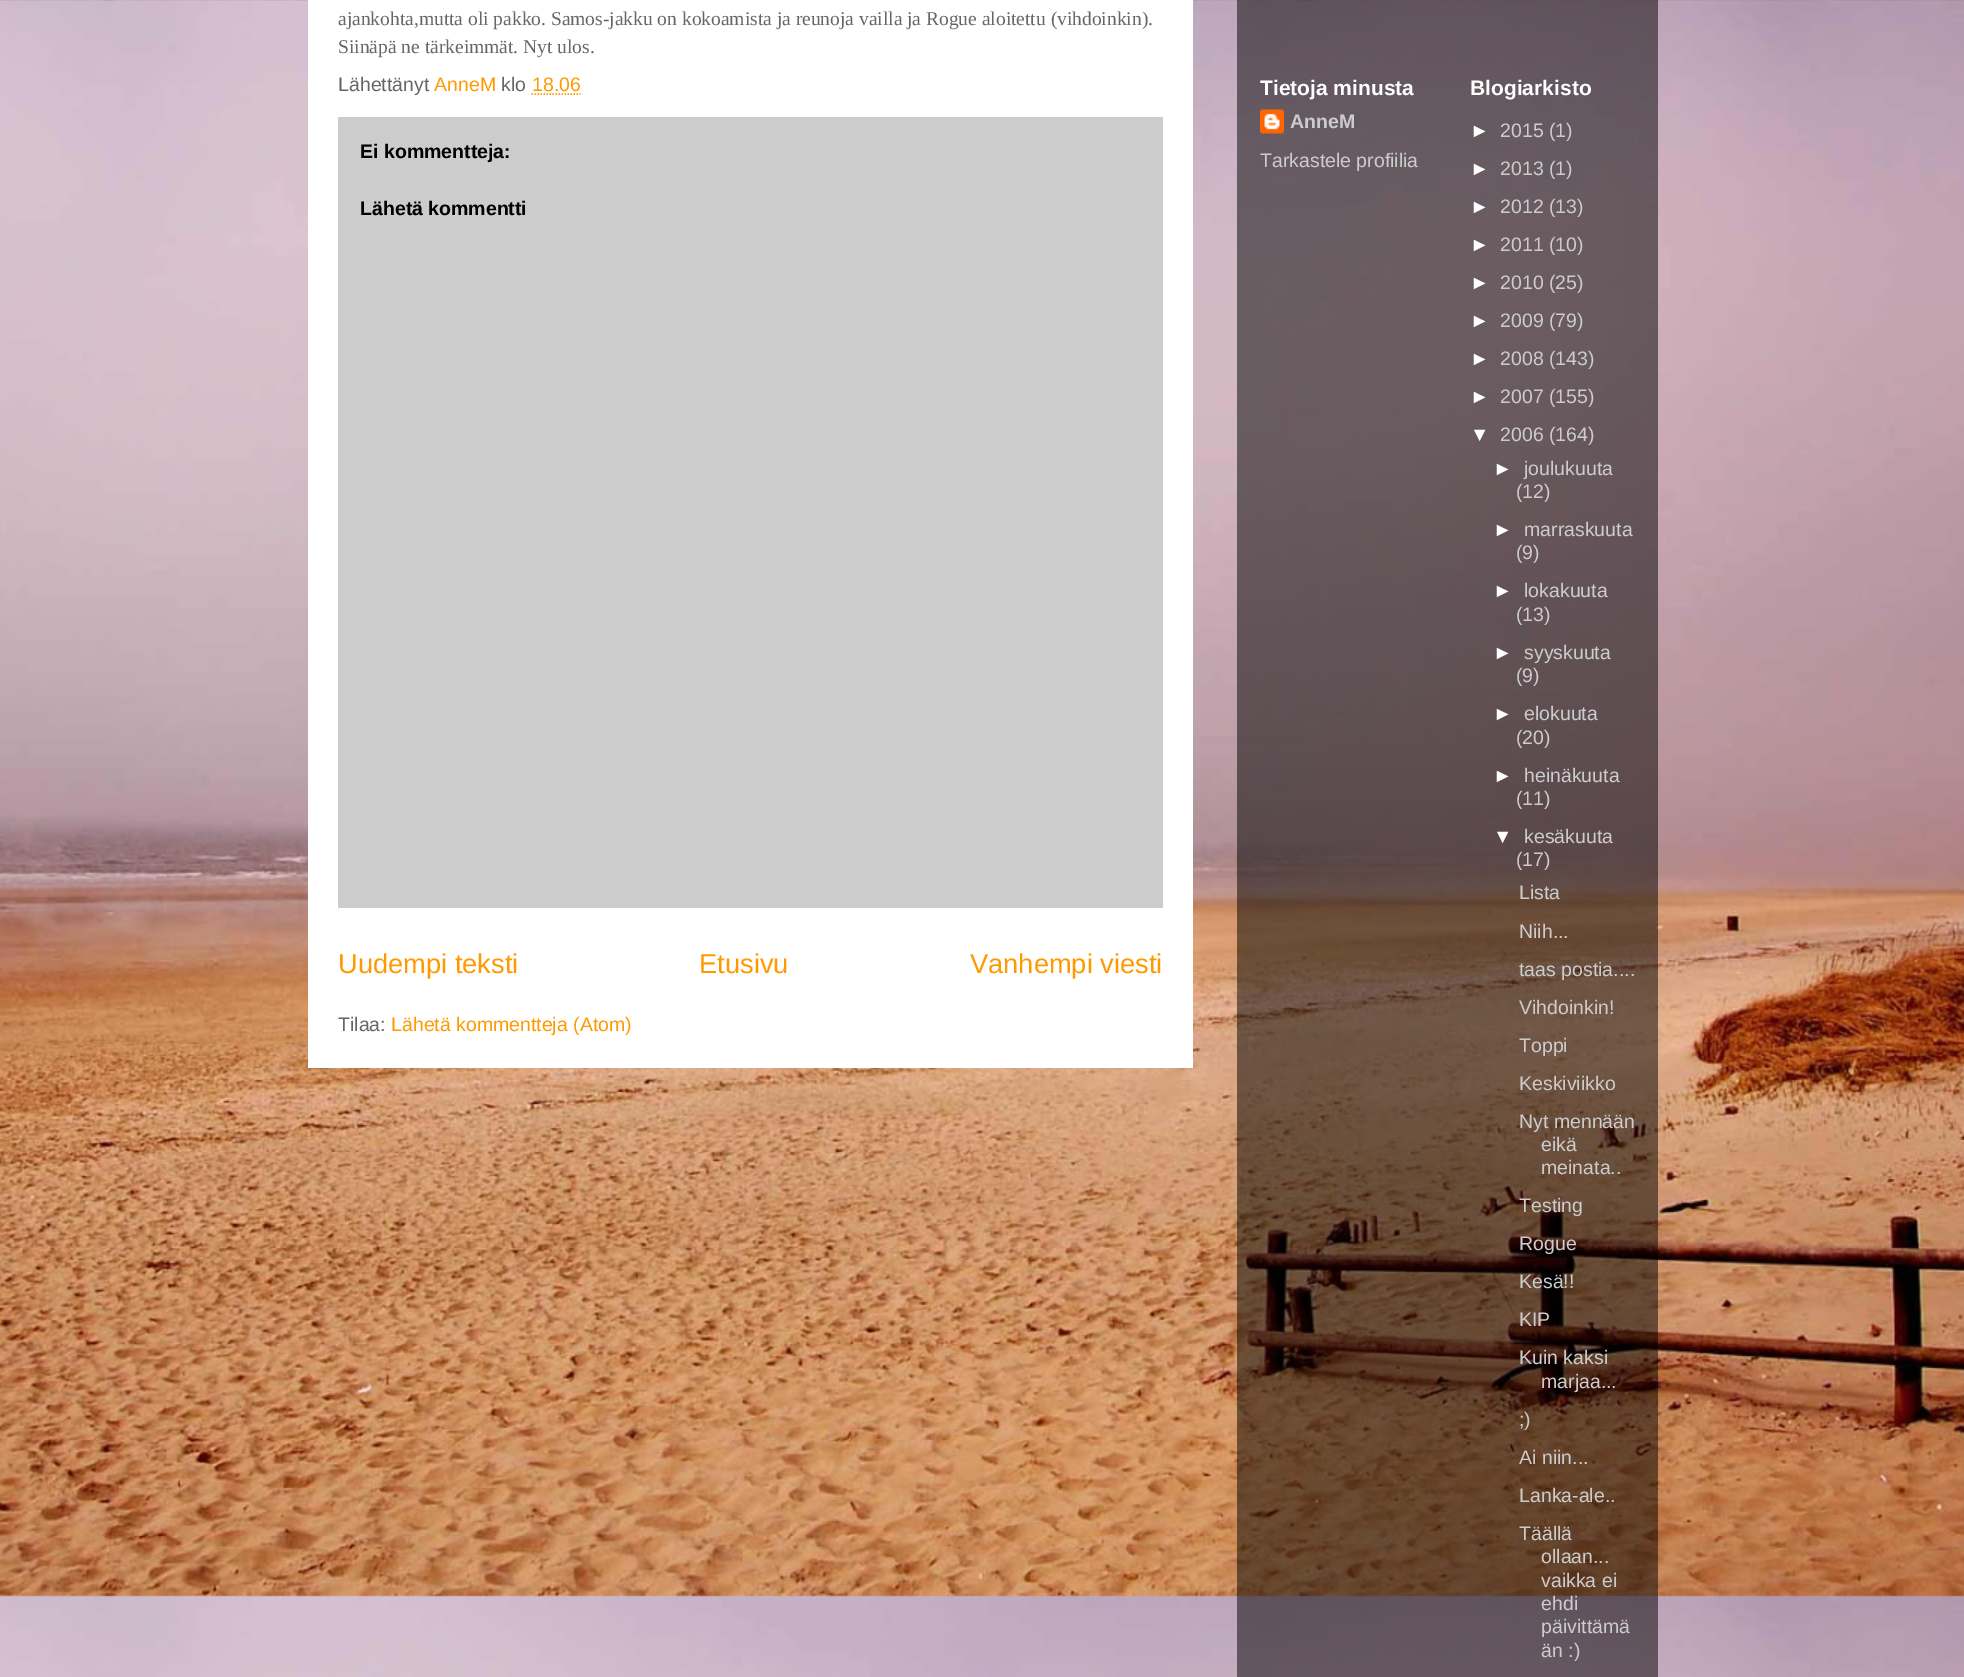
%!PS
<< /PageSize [1964 1677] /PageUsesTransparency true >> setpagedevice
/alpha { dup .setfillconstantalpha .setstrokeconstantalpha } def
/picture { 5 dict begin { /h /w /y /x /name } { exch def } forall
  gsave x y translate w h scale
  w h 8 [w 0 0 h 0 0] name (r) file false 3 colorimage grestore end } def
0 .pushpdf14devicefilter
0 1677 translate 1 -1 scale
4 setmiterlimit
1 setgray
0 0 1964 1677 rectfill
(img1.rgb) 0 0 1964 1677 picture
0.5 alpha
0 setgray
1237 0 421 1677 rectfill
1 alpha
1 setgray
308 0 885 1068 rectfill
/LiberationSerif-Regular [19.5 0 0 -19.5 0 0] selectfont
0.4 setgray
338 25 moveto (ajankohta,mutta oli pakko. Samos-jakku on kokoamista ja reunoja vailla ja Rogue aloitettu \(vihdoinkin\).) show
338 53 moveto (Siinäpä ne tärkeimmät. Nyt ulos.) show
/LiberationSans-Regular [19.5 0 0 -19.5 0 0] selectfont
338 91 moveto (Lähettänyt) show
1 0.6 0 setrgbcolor
434 91 moveto (AnneM) show
0.4 setgray
501 91 moveto (klo) show
1 0.6 0 setrgbcolor
532 91 moveto (18.06) show
1.5 setlinewidth
[1.5 1.5] 0 setdash
newpath 531.5 94 moveto 580.5 94 lineto stroke
0.8 setgray
338 117 825 791 rectfill
/LiberationSans-Bold [19.5 0 0 -19.5 0 0] selectfont
0 setgray
360 158 moveto (Ei kommentteja:) show
360 215 moveto (Lähetä kommentti) show
/LiberationSans-Regular [27.25 0 0 -27.25 0 0] selectfont
1 0.6 0 setrgbcolor
338 973 moveto (Uudempi teksti) show
699 973 moveto (Etusivu) show
970 973 moveto (Vanhempi viesti) show
/LiberationSans-Regular [19.5 0 0 -19.5 0 0] selectfont
0.4 setgray
338 1031 moveto (Tilaa:) show
1 0.6 0 setrgbcolor
391 1031 moveto (Lähetä kommentteja \(Atom\)) show
/LiberationSans-Bold [21 0 0 -21 0 0] selectfont
1 setgray
1260 95 moveto (Tietoja minusta) show
(img2.rgb) 1260 109 24 25 picture
/LiberationSans-Bold [19.5 0 0 -19.5 0 0] selectfont
0.8 setgray
1290 128 moveto (AnneM) show
/LiberationSans-Regular [19.5 0 0 -19.5 0 0] selectfont
1260 167 moveto (Tarkastele profiilia) show
/LiberationSans-Bold [21 0 0 -21 0 0] selectfont
1 setgray
1470 95 moveto (Blogiarkisto) show
/LiberationSans-Regular [19.5 0 0 -19.5 0 0] selectfont
1470 137 moveto (►) show
0.8 setgray
1500 137 moveto (2015 \(1\)) show
1 setgray
1470 175 moveto (►) show
0.8 setgray
1500 175 moveto (2013 \(1\)) show
1 setgray
1470 213 moveto (►) show
0.8 setgray
1500 213 moveto (2012 \(13\)) show
1 setgray
1470 251 moveto (►) show
0.8 setgray
1500 251 moveto (2011 \(10\)) show
1 setgray
1470 289 moveto (►) show
0.8 setgray
1500 289 moveto (2010 \(25\)) show
1 setgray
1470 327 moveto (►) show
0.8 setgray
1500 327 moveto (2009 \(79\)) show
1 setgray
1470 365 moveto (►) show
0.8 setgray
1500 365 moveto (2008 \(143\)) show
1 setgray
1470 403 moveto (►) show
0.8 setgray
1500 403 moveto (2007 \(155\)) show
1 setgray
1470 441 moveto (▼) show
0.8 setgray
1500 441 moveto (2006 \(164\)) show
1 setgray
1493 475 moveto (►) show
0.8 setgray
1524 475 moveto (joulukuuta) show
1516 498 moveto (\(12\)) show
1 setgray
1493 536 moveto (►) show
0.8 setgray
1524 536 moveto (marraskuuta) show
1516 559 moveto (\(9\)) show
1 setgray
1493 597 moveto (►) show
0.8 setgray
1524 597 moveto (lokakuuta) show
1516 621 moveto (\(13\)) show
1 setgray
1493 659 moveto (►) show
0.8 setgray
1524 659 moveto (syyskuuta) show
1516 682 moveto (\(9\)) show
1 setgray
1493 720 moveto (►) show
0.8 setgray
1524 720 moveto (elokuuta) show
1516 744 moveto (\(20\)) show
1 setgray
1493 782 moveto (►) show
0.8 setgray
1524 782 moveto (heinäkuuta) show
1516 805 moveto (\(11\)) show
1 setgray
1493 843 moveto (▼) show
0.8 setgray
1524 843 moveto (kesäkuuta) show
1516 866 moveto (\(17\)) show
1519 899 moveto (Lista) show
1519 938 moveto (Niih...) show
1519 976 moveto (taas postia....) show
1519 1014 moveto (Vihdoinkin!) show
1519 1052 moveto (Toppi) show
1519 1090 moveto (Keskiviikko) show
1519 1128 moveto (Nyt mennään) show
1541 1151 moveto (eikä) show
1541 1174 moveto (meinata..) show
1519 1212 moveto (Testing) show
1519 1250 moveto (Rogue) show
1519 1288 moveto (Kesä!!) show
1519 1326 moveto (KIP) show
1519 1364 moveto (Kuin kaksi) show
1541 1388 moveto (marjaa...) show
1519 1426 moveto (;\)) show
1519 1464 moveto (Ai niin...) show
1519 1502 moveto (Lanka-ale..) show
1519 1540 moveto (Täällä) show
1541 1563 moveto (ollaan...) show
1541 1587 moveto (vaikka ei) show
1541 1610 moveto (ehdi) show
1541 1633 moveto (päivittämä) show
1541 1657 moveto (än :\)) show
.poppdf14devicefilter showpage
